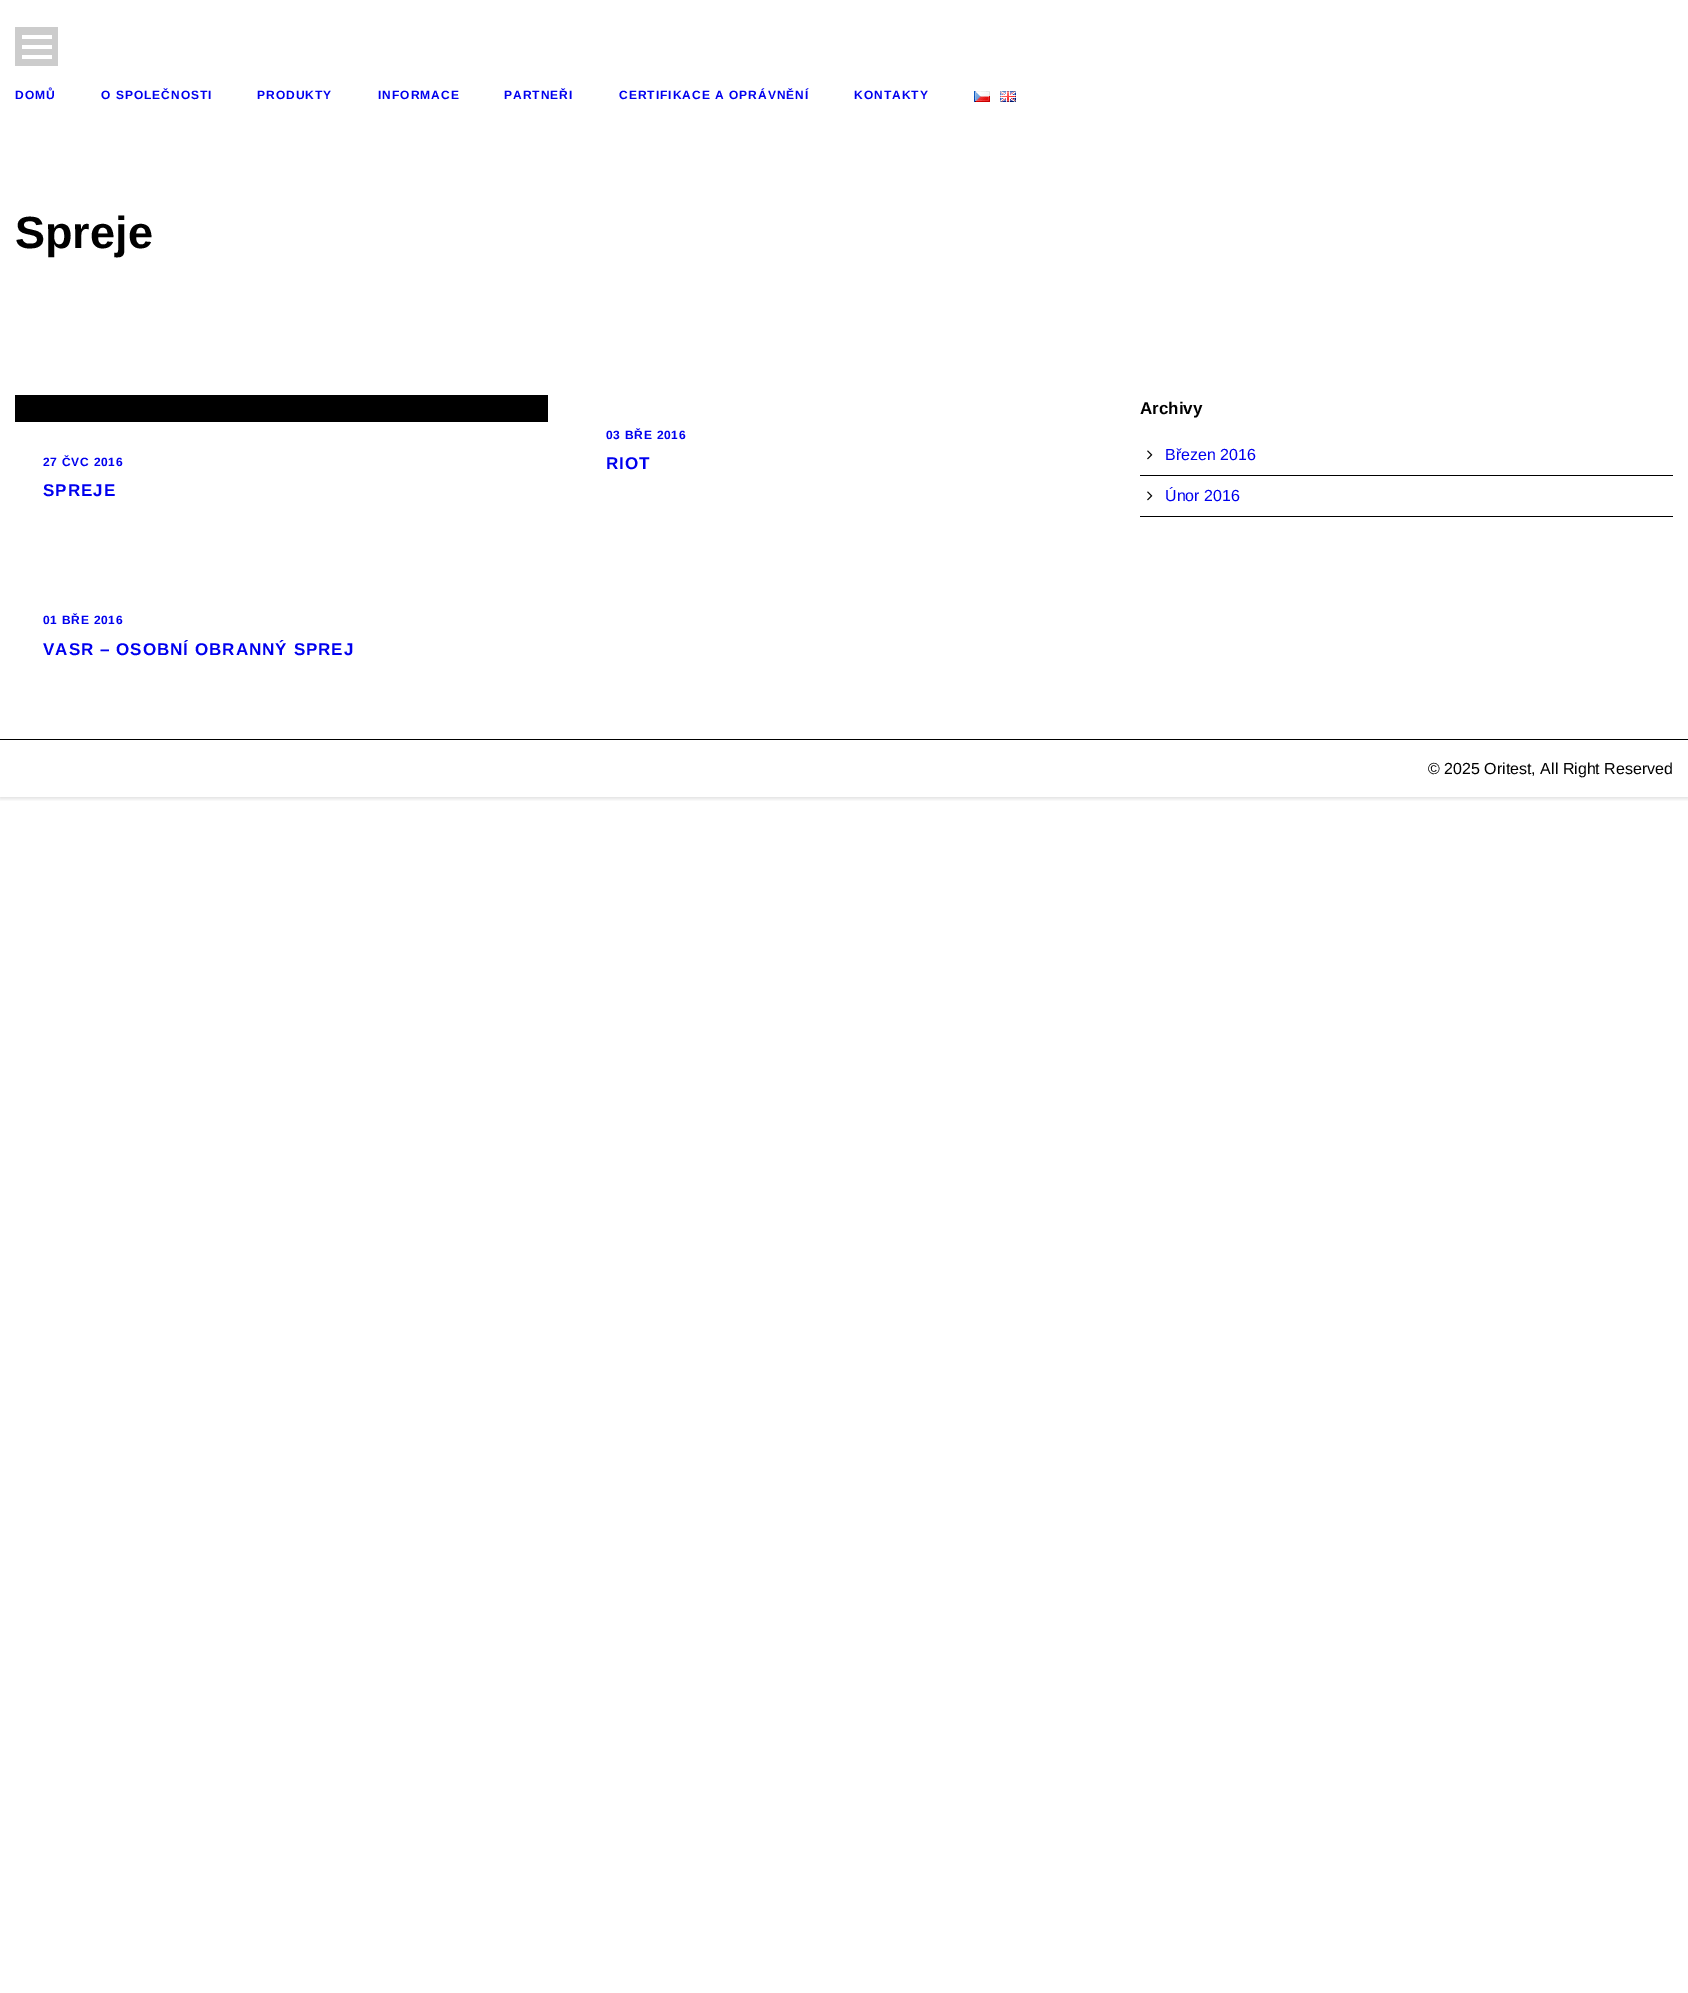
%!PS
<< /PageSize [1688 1993] /PageUsesTransparency true >> setpagedevice
/alpha { dup .setfillconstantalpha .setstrokeconstantalpha } def
/roundrect { 5 dict begin { /r /h /w /y /x } { exch def } forall
  x r add y moveto x w add y 2 copy h add r arct x w add y h add x 1 index r arct
  x y h add x y r arct x y 2 copy exch w add exch r arct closepath end } def
/shadow { 12 dict begin { /a /b /q /h /w /y /x } { exch def } forall gsave /was 0 def
  9 -2 -9 { dup b mul 4 div /e exch def 1 sub .425 mul 2.718 exch exp 1 add a .99 .min exch div /now exch def
    1 1 now sub 1 was sub div sub alpha /was now def
    w h .min e 2 mul add 0 gt { x e sub y e sub w e 2 mul add h e 2 mul add
      q e add b .6 mul add w h .min 2 div e add .min 0 .max roundrect fill } if } for grestore end } def
/picture { 5 dict begin { /h /w /y /x /name } { exch def } forall
  gsave x y translate w h scale
  w h 8 [w 0 0 h 0 0] name (r) file false 3 colorimage grestore end } def
0 .pushpdf14devicefilter
0 1993 translate 1 -1 scale
4 setmiterlimit
1 setgray
0 0 1688 1993 rectfill
gsave
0 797 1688 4 rectclip
0 setgray
0 1 1688 797 0 2.5 0.15 shadow
grestore
0.8 setgray
15 27 43 39 rectfill
1 setgray
22 55 30 4 rectfill
22 45 30 4 rectfill
22 35 30 4 rectfill
/LiberationSans-Bold [12 0 0 -12 0 0] selectfont
0 0 0.933 setrgbcolor
15 99 moveto 1 0 (DOMŮ) ashow
101 99 moveto 1 0 (O SPOLEČNOSTI) ashow
257 99 moveto 1 0 (PRODUKTY) ashow
378 99 moveto 1 0 (INFORMACE) ashow
504 99 moveto 1 0 (PARTNEŘI) ashow
619 99 moveto 1 0 (CERTIFIKACE A OPRÁVNĚNÍ) ashow
854 99 moveto 1 0 (KONTAKTY) ashow
(img1.rgb) 974 91 16 11 picture
(img2.rgb) 1000 91 16 11 picture
/LiberationSans-Bold [45 0 0 -45 0 0] selectfont
0 setgray
15 248 moveto (Spreje) show
/LiberationSans-Bold [12 0 0 -12 0 0] selectfont
0 0 0.933 setrgbcolor
606 439 moveto 0.75 0 (03 BŘE 2016) ashow
/LiberationSans-Bold [17 0 0 -17 0 0] selectfont
606 469 moveto 1 0 (RIOT) ashow
0 setgray
15 395 533 27 rectfill
/LiberationSans-Bold [12 0 0 -12 0 0] selectfont
0 0 0.933 setrgbcolor
43 466 moveto 0.75 0 (27 ČVC 2016) ashow
/LiberationSans-Bold [17 0 0 -17 0 0] selectfont
43 496 moveto 1 0 (SPREJE) ashow
/LiberationSans-Bold [12 0 0 -12 0 0] selectfont
43 624 moveto 0.75 0 (01 BŘE 2016) ashow
/LiberationSans-Bold [17 0 0 -17 0 0] selectfont
43 655 moveto 1 0 (VASR – OSOBNÍ OBRANNÝ SPREJ) ashow
0 setgray
1140 414 moveto (Archivy) show
1140 475 533 1 rectfill
(img3.rgb) 1147 450 6 10 picture
/LiberationSans-Regular [16 0 0 -16 0 0] selectfont
0 0 0.933 setrgbcolor
1165 460 moveto (Březen 2016) show
0 setgray
1140 516 533 1 rectfill
(img3.rgb) 1147 491 6 10 picture
0 0 0.933 setrgbcolor
1165 501 moveto (Únor 2016) show
0 setgray
0 739 1688 1 rectfill
1428 774 moveto (© 2025 Oritest, All Right Reserved) show
.poppdf14devicefilter showpage
